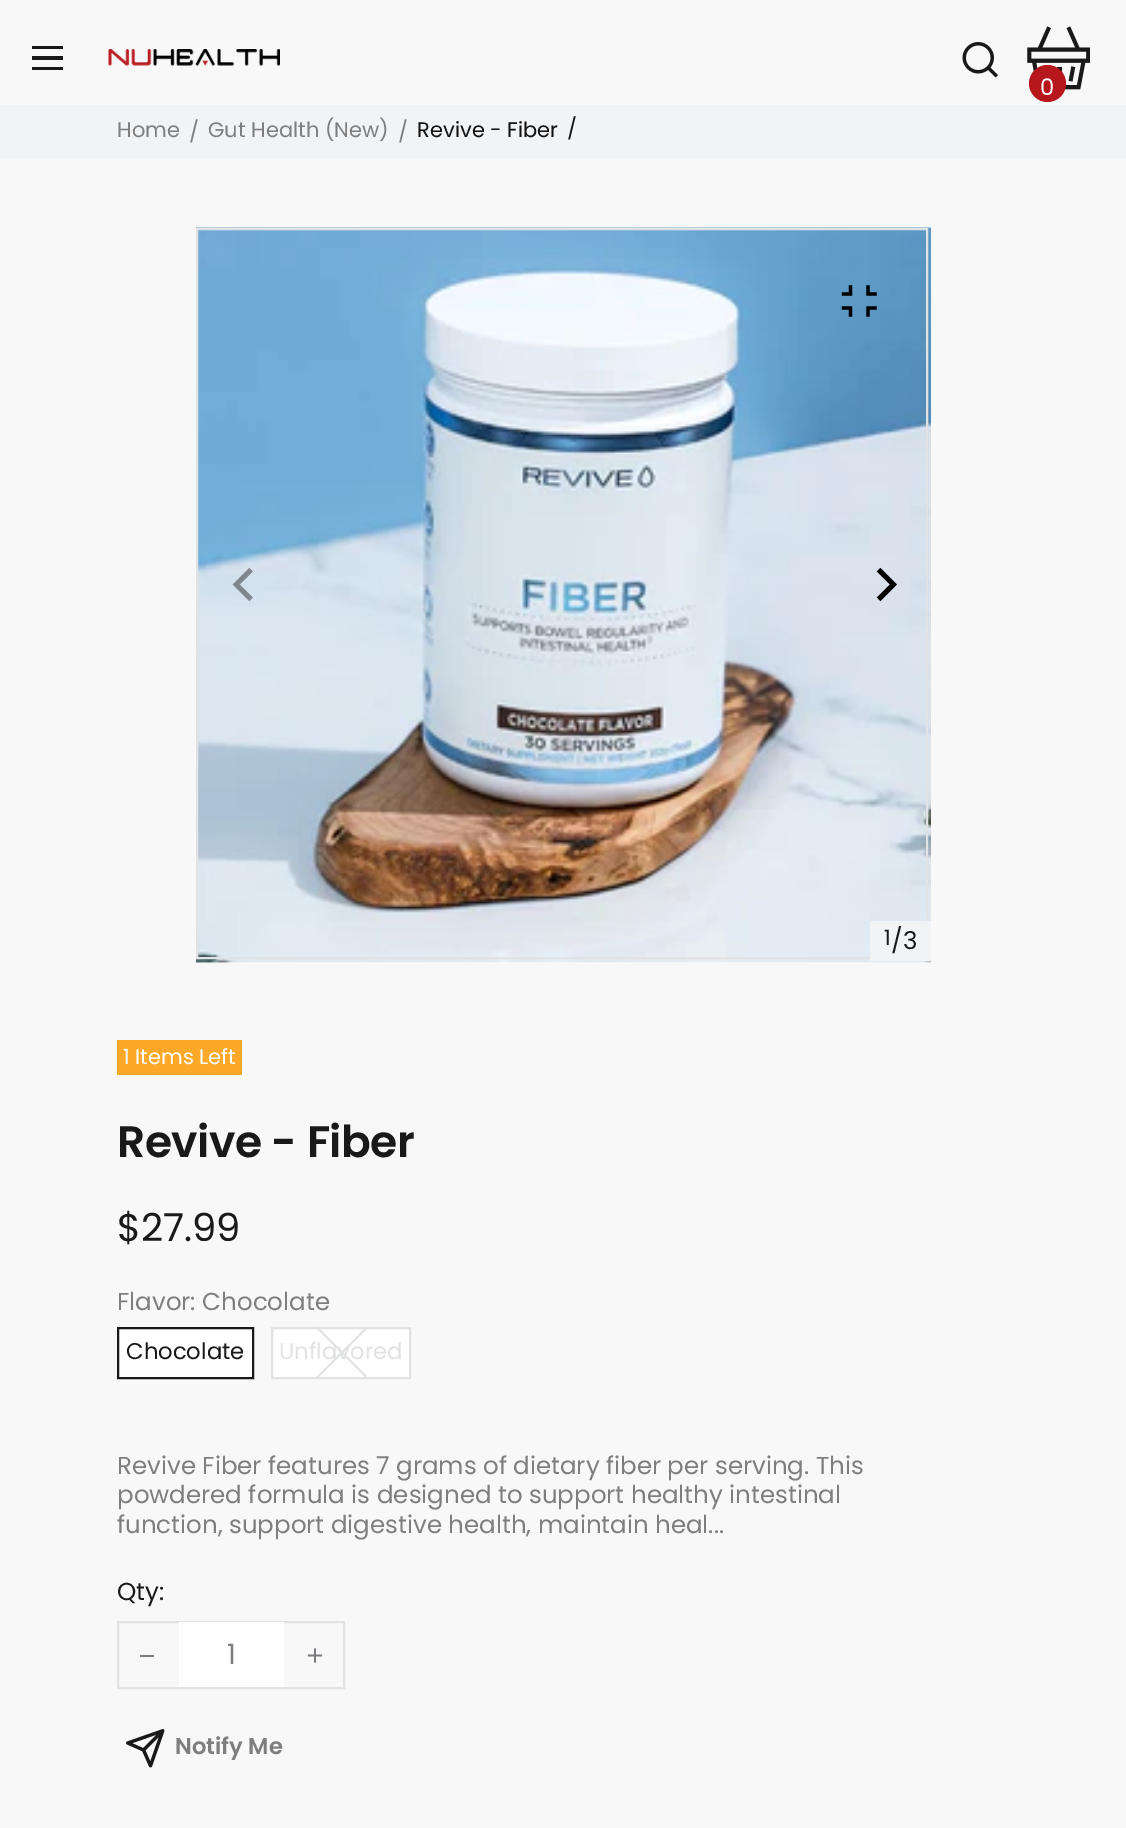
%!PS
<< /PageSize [1126 1828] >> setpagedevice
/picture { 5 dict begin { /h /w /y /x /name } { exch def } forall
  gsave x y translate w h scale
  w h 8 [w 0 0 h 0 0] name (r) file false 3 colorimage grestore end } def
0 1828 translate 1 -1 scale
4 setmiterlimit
0.973 setgray
0 0 1126 1828 rectfill
0.098 setgray
32 46 31 3 rectfill
32 56 31 4 rectfill
32 67 31 3 rectfill
(img1.rgb) 108 49 172 17 picture
(img2.rgb) 962 42 36 36 picture
(img3.rgb) 1027 26 63 64 picture
0.714 0.09 0.114 setrgbcolor
newpath 1047.5 83.5 18.5 0 360 arc closepath fill
/Poppins-Regular [22.75 0 0 -22.75 0 0] selectfont
1 setgray
1040 95 moveto (0) show
0.949 0.953 0.961 setrgbcolor
0 105 1126 53 rectfill
/Poppins-Regular [21 0 0 -21 0 0] selectfont
0.494 setgray
117 137 moveto (Home) show
189 139 moveto (/) show
208 137 moveto (Gut Health \(New\)) show
398 139 moveto (/) show
0.071 setgray
417 137 moveto (Revive - Fiber) show
567 136 moveto (/) show
1 setgray
196 962 735 1 rectfill
(img4.rgb) 196 227 735 736 picture
0.882 0.886 0.894 setrgbcolor
2 setlinewidth
197 229 730 729 rectstroke
(img5.rgb) 841 285 36 32 picture
(img6.rgb) 232 567 21 35 picture
(img7.rgb) 876 567 21 35 picture
0.949 0.953 0.961 setrgbcolor
870 921 61 40 rectfill
0.098 setgray
884 945 moveto (1) show
/Poppins-Regular [24.5 0 0 -24.5 0 0] selectfont
891 949 moveto (/3) show
0.992 0.659 0.157 setrgbcolor
117 1040 125 35 rectfill
/Poppins-Regular [21 0 0 -21 0 0] selectfont
1 setgray
123 1064 moveto (1 Items Left) show
/Poppins-SemiBold [44 0 0 -44 0 0] selectfont
0.098 setgray
117 1157 moveto -0.5 0 (Revive - Fiber) ashow
/Poppins-Regular [38.5 0 0 -38.5 0 0] selectfont
117 1241 moveto ($27.99) show
/Poppins-Regular [24.5 0 0 -24.5 0 0] selectfont
0.494 setgray
117 1310 moveto (Flavor: Chocolate) show
1 setgray
newpath 118 1328 moveto 253 1328 lineto 253 1378 lineto 118 1378 lineto closepath gsave fill grestore
0.098 setgray
stroke
/Poppins-Regular [22.75 0 0 -22.75 0 0] selectfont
126 1359 moveto (Chocolate) show
1 setgray
newpath 272 1328 moveto 410 1328 lineto 410 1378 lineto 272 1378 lineto closepath gsave fill grestore
0.882 0.886 0.894 setrgbcolor
stroke
newpath 366 1327 moveto 368 1328 lineto 317 1379 lineto 316 1377 lineto closepath fill
newpath 317 1326 moveto 316 1328 lineto 365 1377 lineto 367 1376 lineto closepath fill
279 1359 moveto (Unflavored) show
/Poppins-Regular [24.5 0 0 -24.5 0 0] selectfont
0.494 setgray
117 1474 moveto (Revive Fiber features 7 grams of dietary fiber per serving. This) show
117 1503 moveto (powdered formula is designed to support healthy intestinal) show
117 1533 moveto (function, support digestive health, maintain heal...) show
0.098 setgray
117 1600 moveto (Qty:) show
0.882 0.886 0.894 setrgbcolor
118 1622 226 66 rectstroke
0.475 0.482 0.494 setrgbcolor
140 1655 14 2 rectfill
1 setgray
179 1622 105 65 rectfill
/Poppins-Regular [28 0 0 -28 0 0] selectfont
0.494 setgray
227 1664 moveto (1) show
(img8.rgb) 307 1648 16 15 picture
(img9.rgb) 126 1729 39 39 picture
/Poppins-SemiBold [22.75 0 0 -22.75 0 0] selectfont
175 1754 moveto (Notify Me) show
showpage
